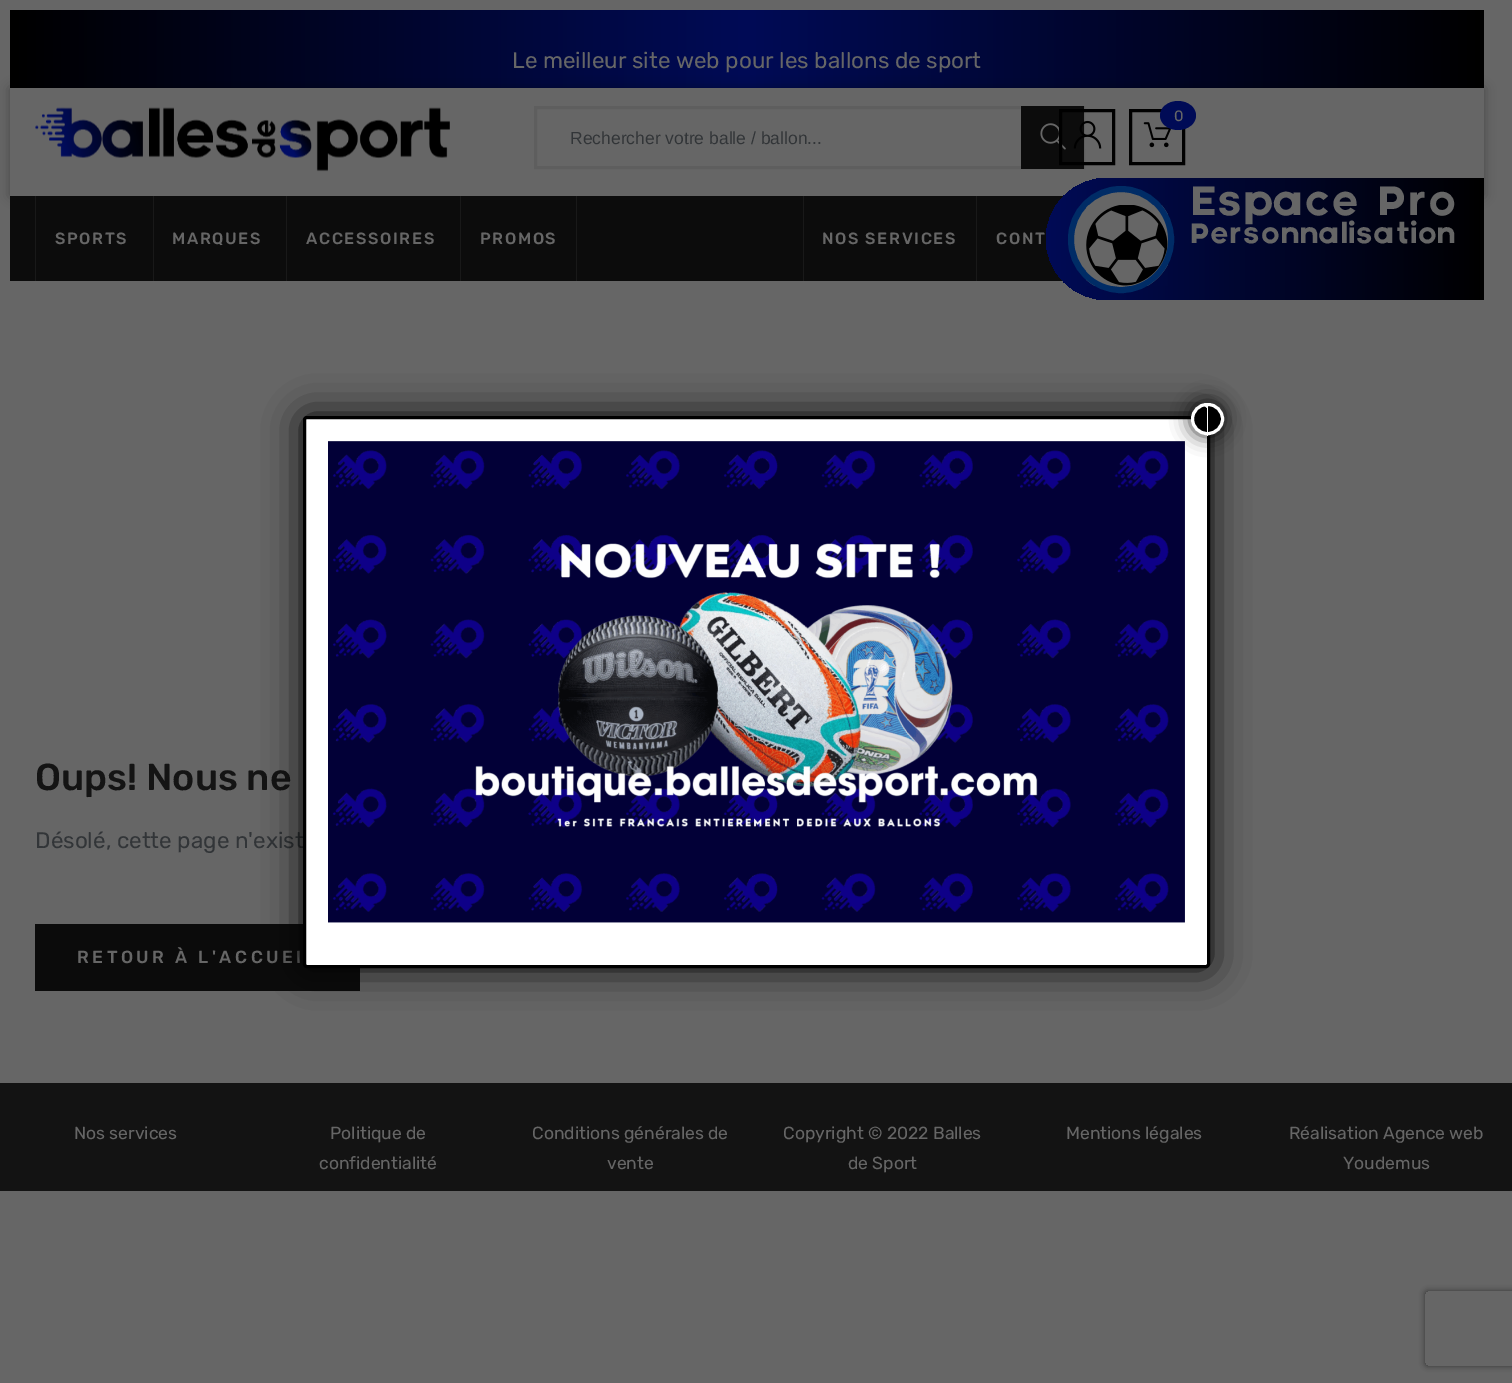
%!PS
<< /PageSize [1512 1383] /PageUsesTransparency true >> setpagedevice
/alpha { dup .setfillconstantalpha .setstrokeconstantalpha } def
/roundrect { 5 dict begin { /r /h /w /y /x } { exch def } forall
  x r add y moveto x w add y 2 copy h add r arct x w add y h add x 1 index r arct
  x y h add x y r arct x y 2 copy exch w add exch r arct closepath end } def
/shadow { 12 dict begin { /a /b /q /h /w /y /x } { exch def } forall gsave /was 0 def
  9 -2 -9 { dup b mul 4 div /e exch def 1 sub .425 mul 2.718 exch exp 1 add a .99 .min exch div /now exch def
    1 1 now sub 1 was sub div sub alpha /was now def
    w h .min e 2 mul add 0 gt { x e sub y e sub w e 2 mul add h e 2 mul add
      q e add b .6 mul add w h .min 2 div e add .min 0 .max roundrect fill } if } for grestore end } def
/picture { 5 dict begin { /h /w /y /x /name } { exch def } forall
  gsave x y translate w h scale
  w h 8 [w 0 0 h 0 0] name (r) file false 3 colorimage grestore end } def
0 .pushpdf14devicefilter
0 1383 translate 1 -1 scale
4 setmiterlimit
0.4 setgray
0 0 1512 1383 rectfill
gsave newpath 10 10 moveto 1484 10 lineto 1484 88 lineto 10 88 lineto closepath clip newpath
<< /ShadingType 2 /ColorSpace /DeviceRGB /Coords [10 49 1484 49] /Extend [true true] /Function << /FunctionType 3 /Domain [0 1] /Functions [<< /FunctionType 2 /Domain [0 1] /C0 [0 0 0] /C1 [0 0.043 0.337] /N 1 >> << /FunctionType 2 /Domain [0 1] /C0 [0 0.043 0.337] /C1 [0 0 0] /N 1 >>] /Bounds [0.5] /Encode [0 1 0 1] >> >> shfill grestore
gsave
newpath 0 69 moveto 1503 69 lineto 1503 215 lineto 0 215 lineto closepath 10 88 moveto 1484 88 lineto 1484 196 lineto 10 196 lineto closepath eoclip newpath
0 setgray
10 88 1474 108 0 6 0.3 shadow
grestore
/Rubik-Regular [22.5 0 0 -22.5 0 0] selectfont
512 68 moveto (Le meilleur site web pour les ballons de sport) show
(img1.rgb) 35 107 415 65 picture
0.369 setgray
3 setlinewidth
535.5 107.5 548 60 rectstroke
0.047 setgray
1021 106 63 63 rectfill
(img4.rgb) 1040 123 26 27 picture
0 setgray
1060.5 110.5 53 53 rectstroke
(img2.rgb) 1073 120 29 29 picture
1130.5 110.5 53 53 rectstroke
(img3.rgb) 1143 122 29 26 picture
0 0.043 0.337 setrgbcolor
newpath 1178 101 moveto 1188 101 1196 107.5 1196 115.5 curveto 1196 123.5 1188 130 1178 130 curveto 1168 130 1160 123.5 1160 115.5 curveto 1160 107.5 1168 101 1178 101 curveto closepath fill
/Rubik-Regular [15 0 0 -15 0 0] selectfont
0.4 setgray
1174 121 moveto (0) show
/LiberationSans-Regular [17.5 0 0 -17.5 0 0] selectfont
0.196 0.208 0.22 setrgbcolor
570 144 moveto (Rechercher votre balle / ballon...) show
0.047 setgray
10 196 1054 85 rectfill
0.098 setgray
35 196 1 85 rectfill
/Rubik-Medium [16.25 0 0 -16.25 0 0] selectfont
0.4 setgray
55 244 moveto 1.6 0 (SPORTS) ashow
0.098 setgray
153 196 1 85 rectfill
0.4 setgray
172 244 moveto 1.6 0 (MARQUES) ashow
0.098 setgray
286 196 1 85 rectfill
0.4 setgray
306 244 moveto 1.6 0 (ACCESSOIRES) ashow
0.098 setgray
576 196 1 85 rectfill
460 196 1 85 rectfill
0.4 setgray
480 244 moveto 1.6 0 (PROMOS) ashow
0.098 setgray
803 196 1 85 rectfill
0.4 setgray
822 244 moveto 1.6 0 (NOS SERVICES) ashow
0.098 setgray
976 196 1 85 rectfill
0.4 setgray
996 244 moveto 1.6 0 (CONT) ashow
gsave newpath 1107 178 moveto 1484 178 lineto 1484 300 lineto 1107 300 lineto 1073.5 300 1046 272.5 1046 239 curveto 1046 205.5 1073.5 178 1107 178 curveto closepath clip newpath
<< /ShadingType 2 /ColorSpace /DeviceRGB /Coords [1046 239 1484 239] /Extend [true true] /Function << /FunctionType 2 /Domain [0 1] /C0 [0 0.043 0.337] /C1 [0 0 0] /N 1 >> >> shfill grestore
1071 189 100 101 50 roundrect gsave fill grestore
0 0.173 0.4 setrgbcolor
6 setlinewidth
stroke
(img5.rgb) 1086 205 82 81 picture
/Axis-ThinItalic [44 0 0 -44 0 0] selectfont
0.4 setgray
1190 215 moveto (Espace Pro) show
/Axis-ThinItalic [30 0 0 -30 0 0] selectfont
1189 243 moveto (Personnalisation) show
/Rubik-Medium [37.5 0 0 -37.5 0 0] selectfont
0.078 setgray
35 790 moveto (Oups! Nous ne) show
/Rubik-Regular [22.5 0 0 -22.5 0 0] selectfont
0.196 0.208 0.22 setrgbcolor
35 848 moveto (Désolé, cette page n'exist) show
0.043 setgray
35 924 325 67 rectfill
/Rubik-Medium [17.5 0 0 -17.5 0 0] selectfont
0.4 setgray
77 963 moveto 3.5 0 (RETOUR À L'ACCUEI) ashow
0.008 setgray
303 416 907 552 4 19 1 shadow
1 setgray
304.5 417.5 904 549 2.5 roundrect gsave fill grestore
0 setgray
3 setlinewidth
stroke
(img6.rgb) 328 441 857 482 picture
0.008 setgray
1190 401 35 35 17.5 9.5 0.75 shadow
0 setgray
1192.5 404.5 30 29 14.5 roundrect gsave fill grestore
1 setgray
stroke
newpath 1208 403 moveto 1208 436 lineto 1207 436 lineto 1207 408 lineto 1204 405.5 lineto closepath fill
0.075 setgray
0 1083 1512 108 rectfill
/Rubik-Regular [17.5 0 0 -17.5 0 0] selectfont
0.4 setgray
74 1139 moveto (Nos services) show
330 1139 moveto (Politique de) show
319 1169 moveto (confidentialité) show
532 1139 moveto (Conditions générales de) show
607 1169 moveto (vente) show
783 1139 moveto (Copyright © 2022 Balles) show
848 1169 moveto (de Sport) show
1066 1139 moveto (Mentions légales) show
1289 1139 moveto (Réalisation Agence web) show
1343 1169 moveto (Youdemus) show
gsave
newpath 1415 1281 moveto 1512 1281 lineto 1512 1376 lineto 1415 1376 lineto closepath 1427.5 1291 moveto 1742.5 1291 lineto 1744 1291 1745 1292 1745 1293.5 curveto 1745 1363.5 lineto 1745 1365 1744 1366 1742.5 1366 curveto 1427.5 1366 lineto 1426 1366 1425 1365 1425 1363.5 curveto 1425 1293.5 lineto 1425 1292 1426 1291 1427.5 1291 curveto closepath eoclip newpath
0.2 setgray
1425 1291 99 75 2.5 3 1 shadow
grestore
.poppdf14devicefilter showpage
